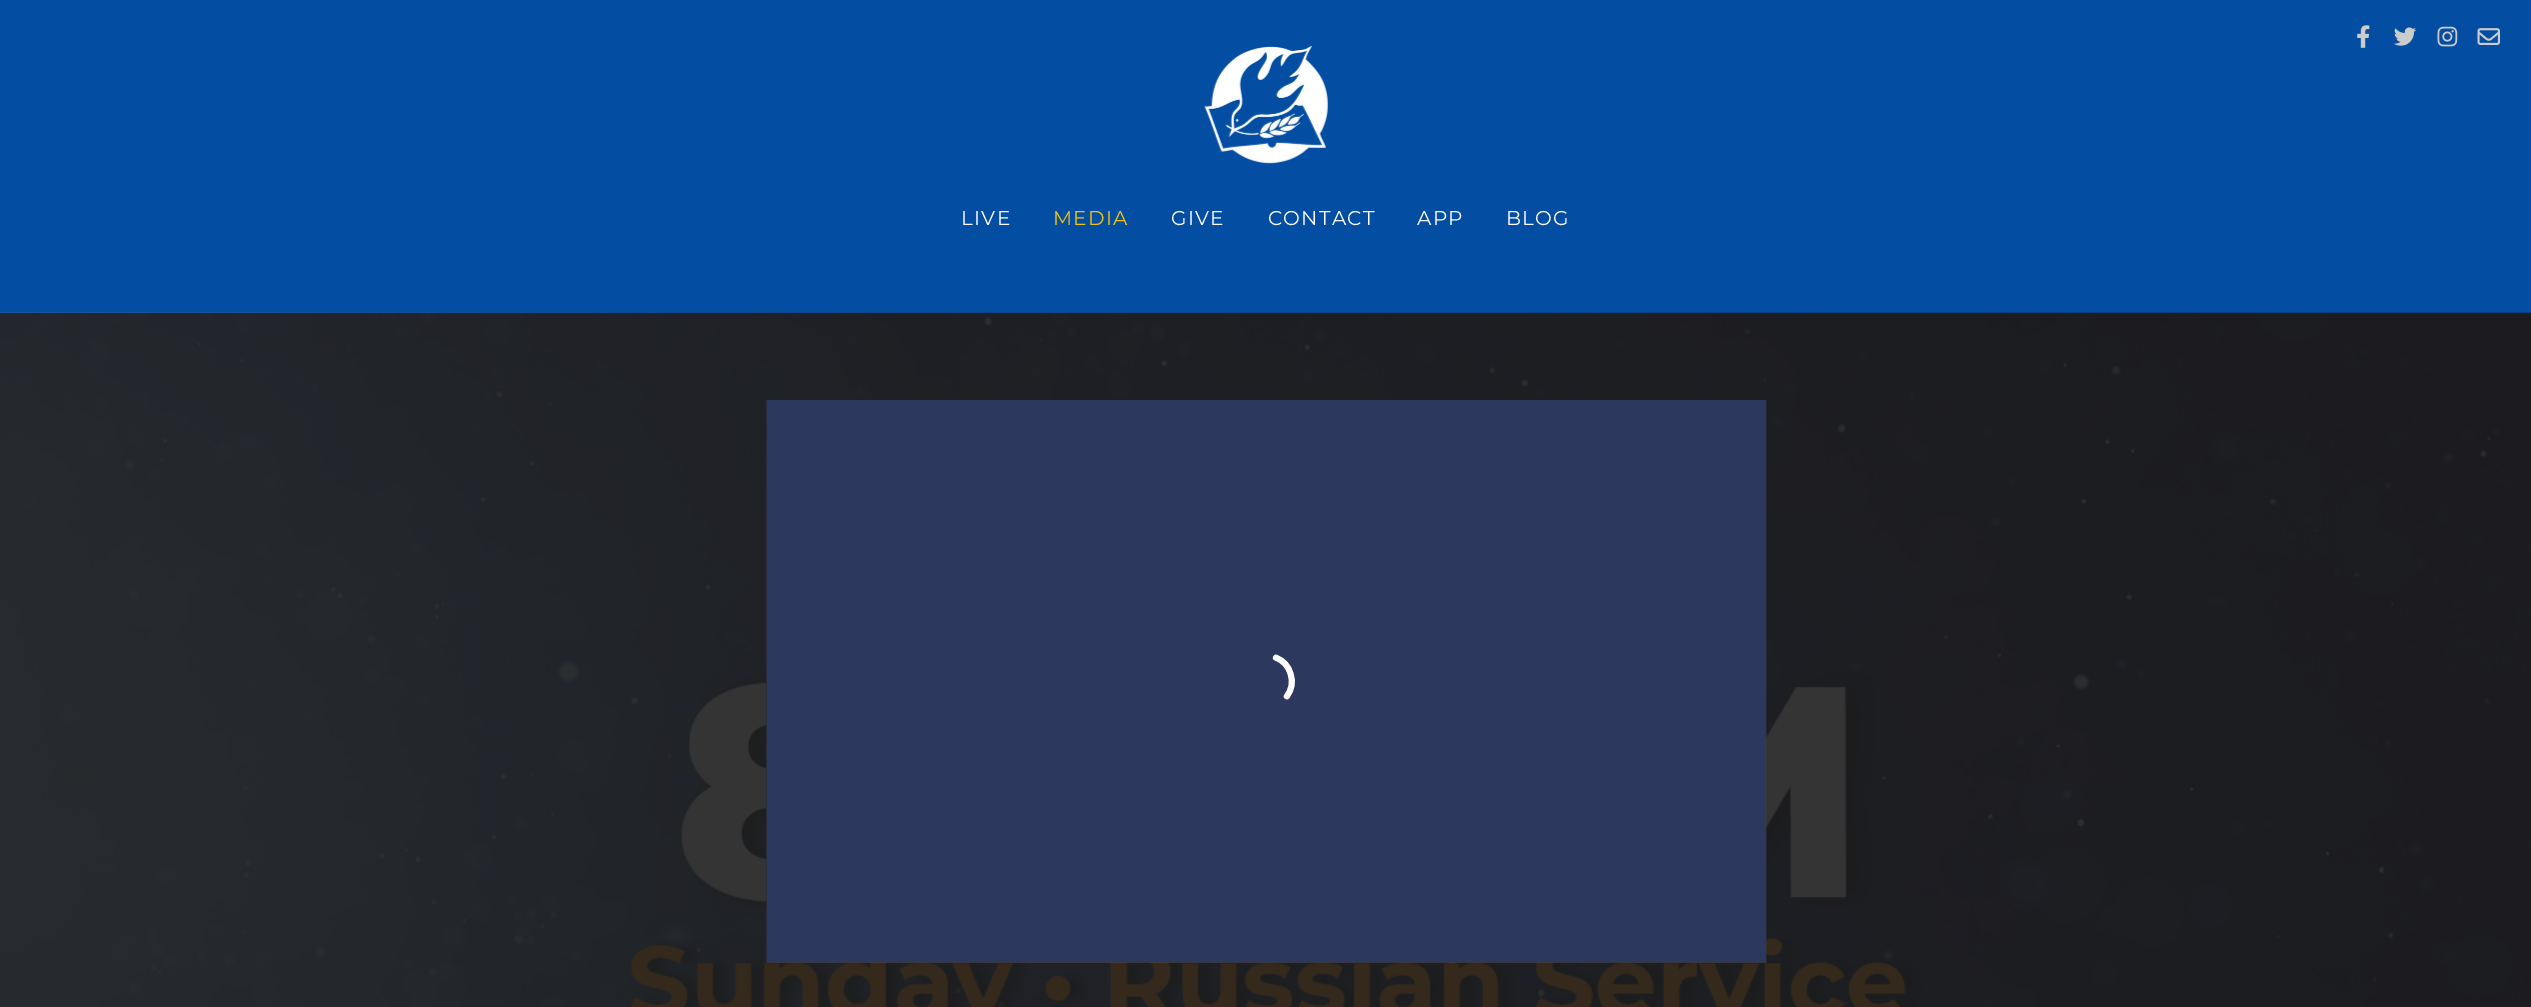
%!PS
<< /PageSize [2531 1007] >> setpagedevice
/picture { 5 dict begin { /h /w /y /x /name } { exch def } forall
  gsave x y translate w h scale
  w h 8 [w 0 0 h 0 0] name (r) file false 3 colorimage grestore end } def
0 1007 translate 1 -1 scale
4 setmiterlimit
0.012 0.306 0.635 setrgbcolor
0 0 2531 1007 rectfill
(img1.rgb) 2357 25 13 23 picture
(img2.rgb) 2394 27 23 19 picture
(img3.rgb) 2437 26 21 21 picture
(img4.rgb) 2477 28 23 17 picture
(img5.rgb) 1204 46 124 118 picture
/Montserrat-Regular [20 0 0 -20 0 0] selectfont
1 setgray
961 225 moveto 1.25 0 (LIVE) ashow
0.945 0.769 0.059 setrgbcolor
1053 225 moveto 1.25 0 (MEDIA) ashow
1 setgray
1171 225 moveto 1.25 0 (GIVE) ashow
1268 225 moveto 1.25 0 (CONTACT) ashow
1417 225 moveto 1.25 0 (APP) ashow
1506 225 moveto 1.25 0 (BLOG) ashow
(img6.rgb) 0 312 2531 695 picture
(img7.rgb) 766 400 1001 563 picture
showpage
